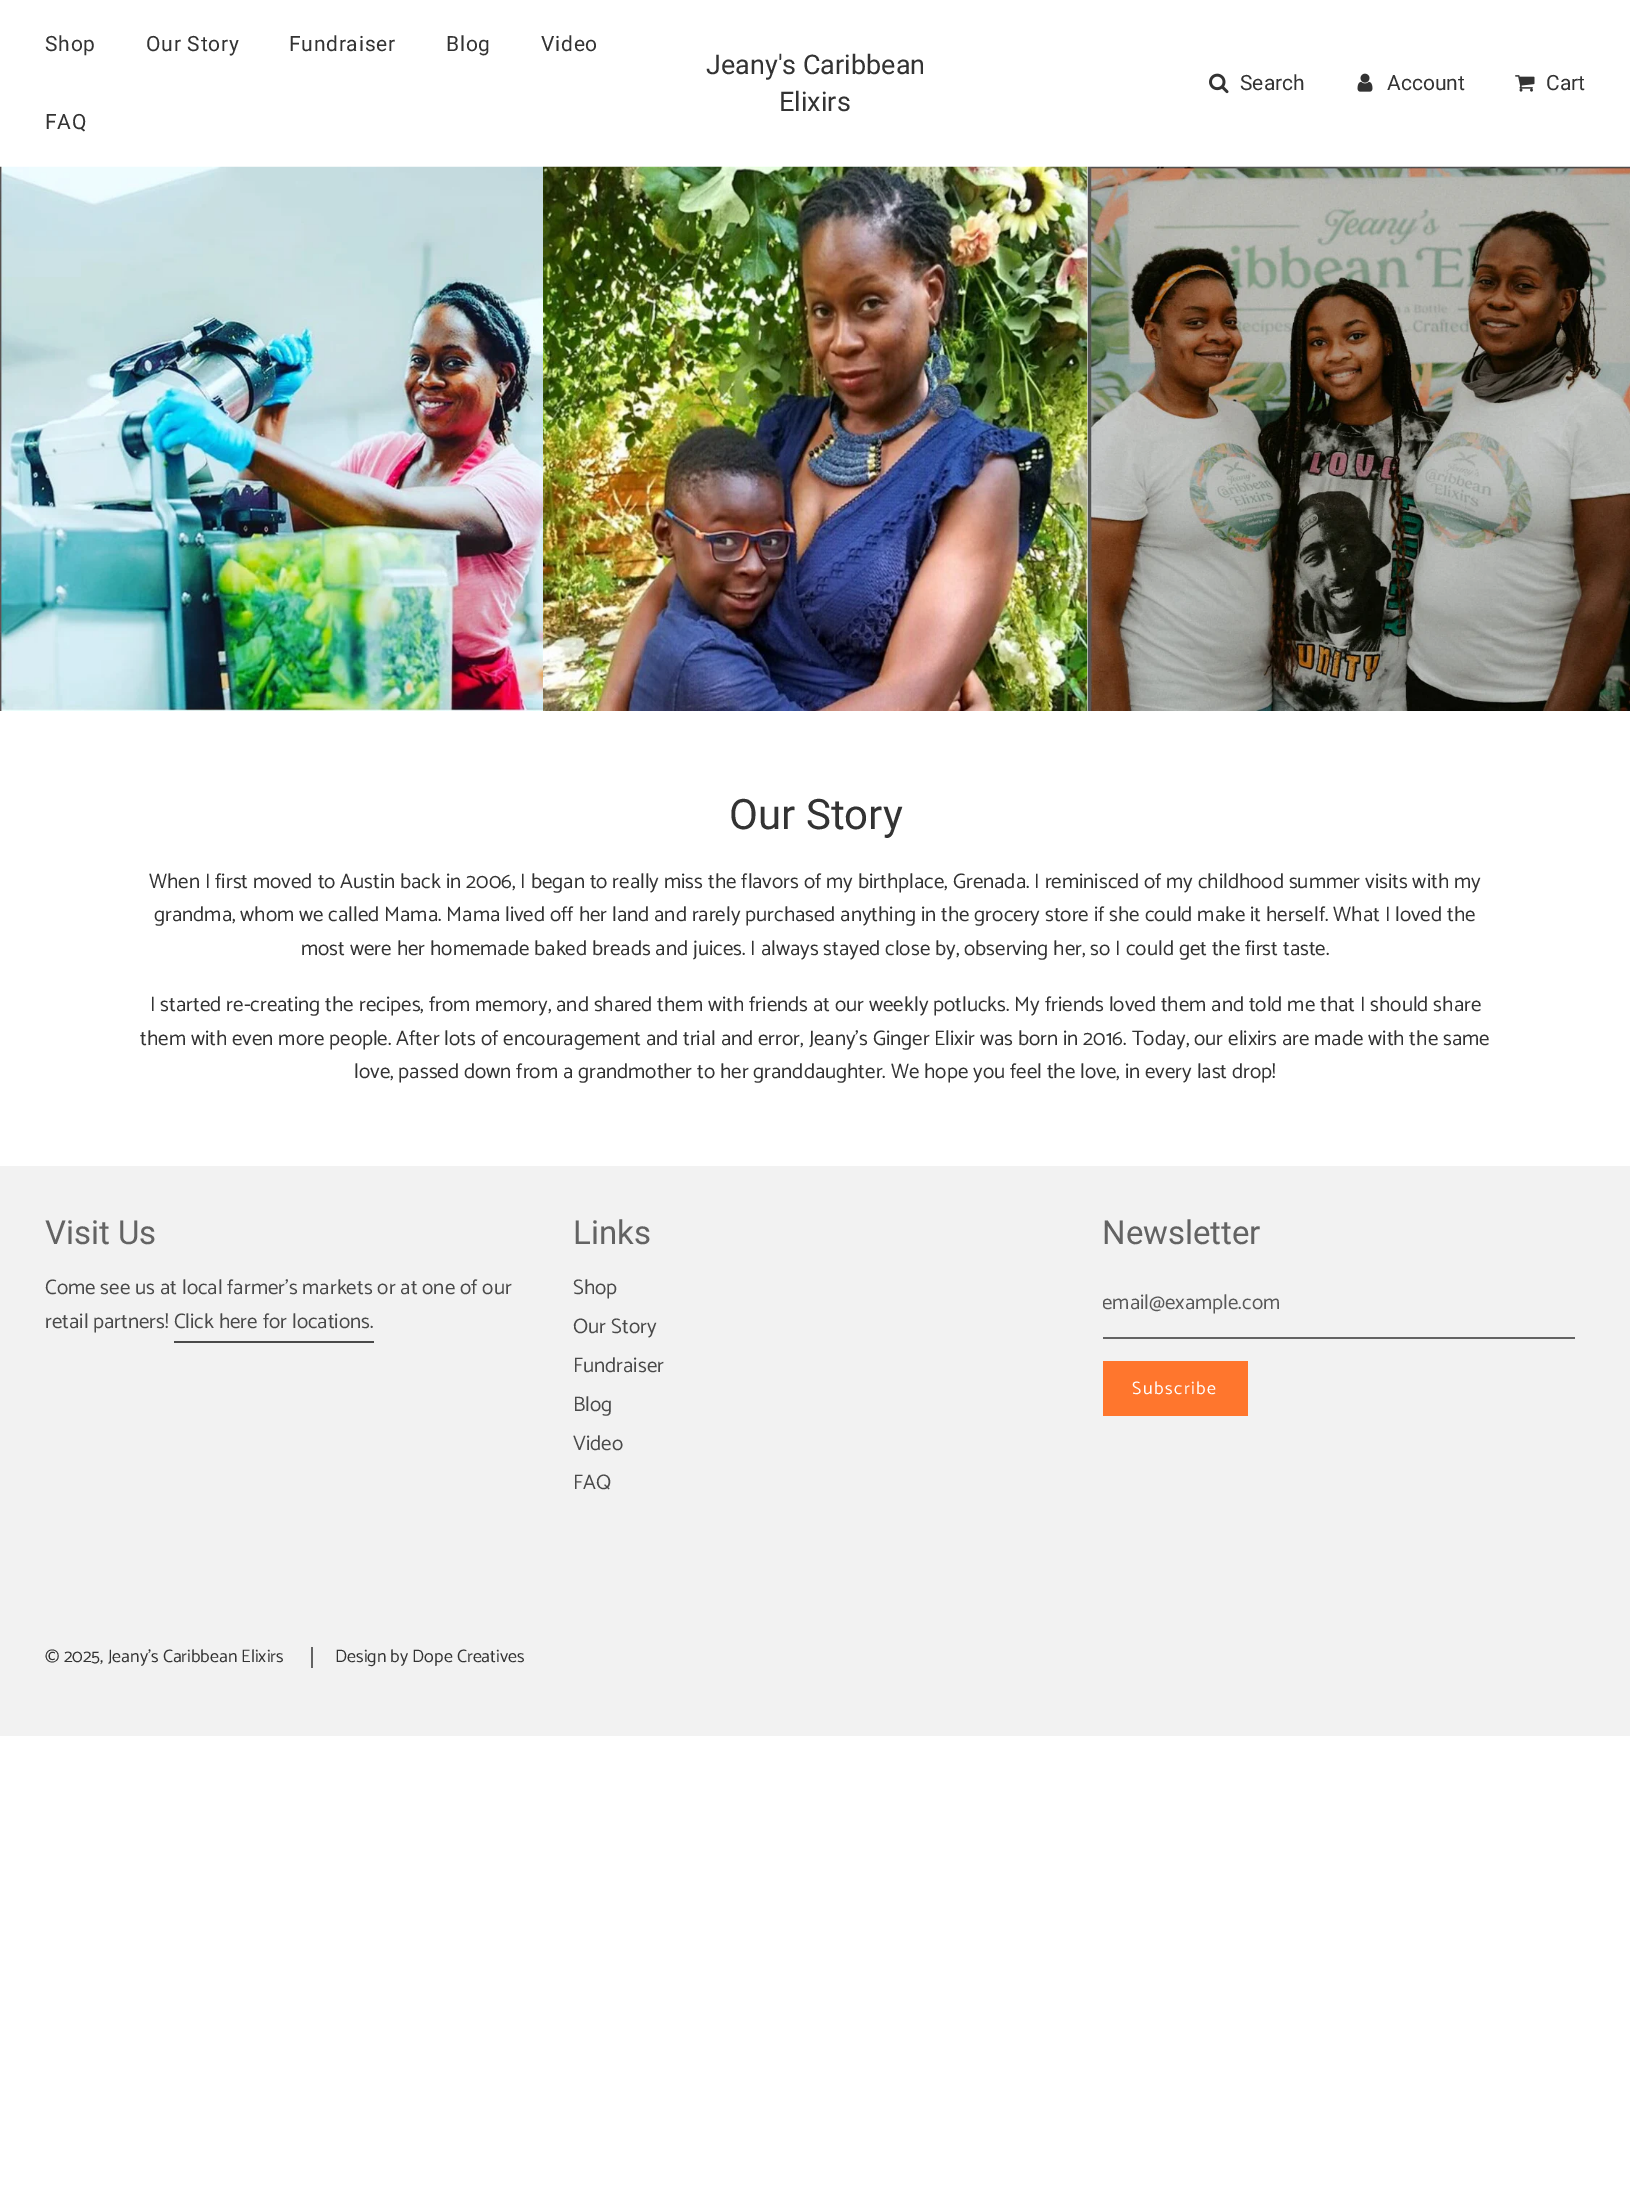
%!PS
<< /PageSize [1630 2212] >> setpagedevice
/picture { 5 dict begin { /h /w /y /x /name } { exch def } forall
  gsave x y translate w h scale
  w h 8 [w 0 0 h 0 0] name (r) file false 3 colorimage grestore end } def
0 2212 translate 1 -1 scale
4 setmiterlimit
1 setgray
0 0 1630 2212 rectfill
/Roboto-Regular [21 0 0 -21 0 0] selectfont
0.2 setgray
45 51 moveto 0.75 0 (Shop) ashow
146 51 moveto 0.75 0 (Our Story) ashow
289 51 moveto 0.75 0 (Fundraiser) ashow
446 51 moveto 0.75 0 (Blog) ashow
541 51 moveto 0.75 0 (Video) ashow
45 129 moveto 0.75 0 (FAQ) ashow
/Roboto-Regular [27 0 0 -27 0 0] selectfont
706 74 moveto (Jeany's Caribbean) show
779 111 moveto (Elixirs) show
(img1.rgb) 1209 73 20 21 picture
/Roboto-Regular [21 0 0 -21 0 0] selectfont
1240 90 moveto (Search) show
(img2.rgb) 1357 73 16 19 picture
1387 90 moveto (Account) show
(img3.rgb) 1515 75 20 17 picture
1546 90 moveto (Cart) show
(img4.rgb) 0 166 543 545 picture
(img5.rgb) 543 166 545 545 picture
(img6.rgb) 1087 166 543 545 picture
/Roboto-Regular [42 0 0 -42 0 0] selectfont
729 829 moveto (Our Story) show
/Catamaran-Regular [21 0 0 -21 0 0] selectfont
149 888 moveto (When I first moved to Austin back in 2006, I began to really miss the flavors of my birthplace, Grenada. I reminisced of my childhood summer visits with my) show
154 921 moveto (grandma, whom we called Mama. Mama lived off her land and rarely purchased anything in the grocery store if she could make it herself. What I loved the) show
301 955 moveto (most were her homemade baked breads and juices. I always stayed close by, observing her, so I could get the first taste.) show
150 1011 moveto (I started re-creating the recipes, from memory, and shared them with friends at our weekly potlucks. My friends loved them and told me that I should share) show
140 1045 moveto (them with even more people. After lots of encouragement and trial and error, Jeany’s Ginger Elixir was born in 2016. Today, our elixirs are made with the same) show
354 1078 moveto (love, passed down from a grandmother to her granddaughter. We hope you feel the love, in every last drop!) show
0.949 setgray
0 1166 1630 570 rectfill
/Roboto-Regular [33 0 0 -33 0 0] selectfont
0.388 setgray
45 1244 moveto (Visit Us) show
/Catamaran-Regular [21 0 0 -21 0 0] selectfont
0.29 setgray
45 1294 moveto (Come see us at local farmer's markets or at one of our) show
45 1328 moveto (retail partners! Click here for locations.) show
174 1341 200 2 rectfill
/Roboto-Regular [33 0 0 -33 0 0] selectfont
0.388 setgray
573 1244 moveto (Links) show
/Catamaran-Regular [21 0 0 -21 0 0] selectfont
0.29 setgray
573 1294 moveto (Shop) show
573 1333 moveto (Our Story) show
573 1372 moveto (Fundraiser) show
573 1411 moveto (Blog) show
573 1450 moveto (Video) show
573 1489 moveto (FAQ) show
/Roboto-Regular [33 0 0 -33 0 0] selectfont
0.388 setgray
1102 1244 moveto (Newsletter) show
1103 1337 472 2 rectfill
gsave
1103 1287 457 35 rectclip
/Catamaran-Regular [21 0 0 -21 0 0] selectfont
0.349 setgray
1102 1309 moveto (email@example.com) show
grestore
1 0.463 0.176 setrgbcolor
1103 1361 145 55 rectfill
/Catamaran-Regular [18 0 0 -18 0 0] selectfont
1 setgray
1132 1394 moveto 1.5 0 (Subscribe) ashow
0.2 setgray
45 1662 moveto (© 2025, Jeany's Caribbean Elixirs) show
0.388 setgray
311 1647 2 21 rectfill
0.2 setgray
335 1662 moveto (Design by Dope Creatives) show
showpage
